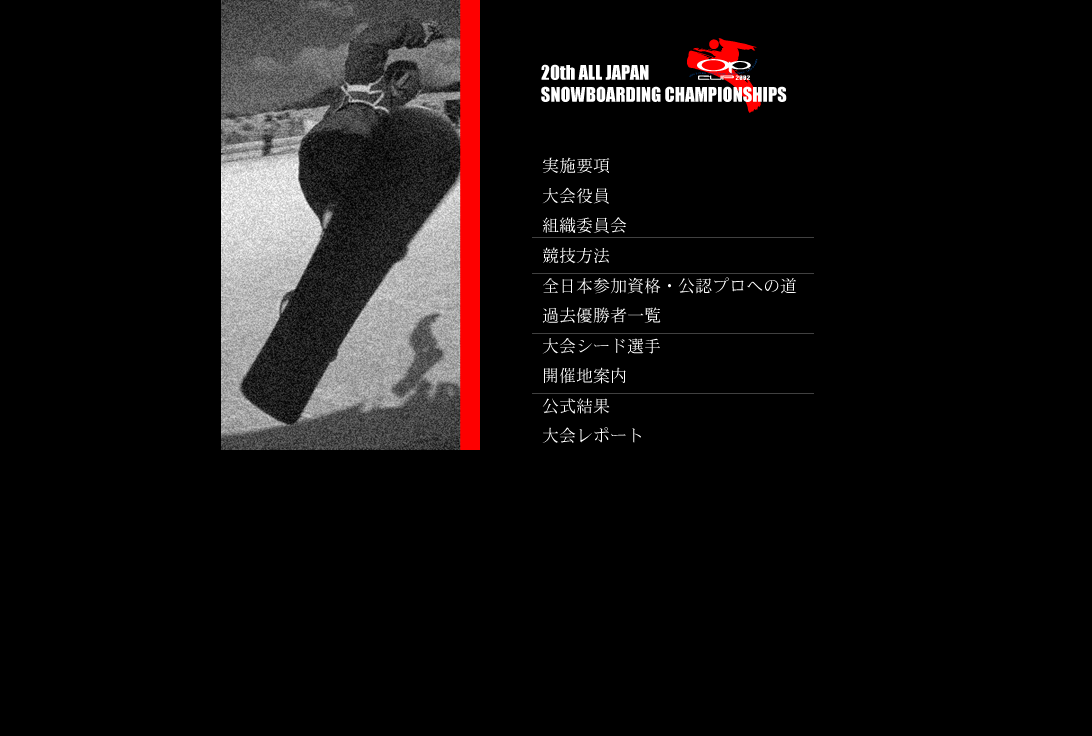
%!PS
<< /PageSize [1092 736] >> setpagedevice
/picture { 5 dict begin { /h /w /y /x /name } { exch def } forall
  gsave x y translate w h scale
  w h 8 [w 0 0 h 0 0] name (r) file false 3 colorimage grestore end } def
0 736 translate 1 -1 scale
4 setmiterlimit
0 setgray
0 0 1092 736 rectfill
(img1.rgb) 221 0 259 450 picture
(img2.rgb) 541 38 246 75 picture
(img3.rgb) 542 157 68 17 picture
(img4.rgb) 542 187 67 17 picture
(img5.rgb) 532 217 282 21 picture
(img6.rgb) 543 247 67 17 picture
(img7.rgb) 532 273 282 21 picture
(img8.rgb) 542 307 119 16 picture
(img9.rgb) 532 333 282 21 picture
(img10.rgb) 544 367 82 17 picture
(img11.rgb) 532 393 282 21 picture
(img12.rgb) 542 427 99 16 picture
showpage
